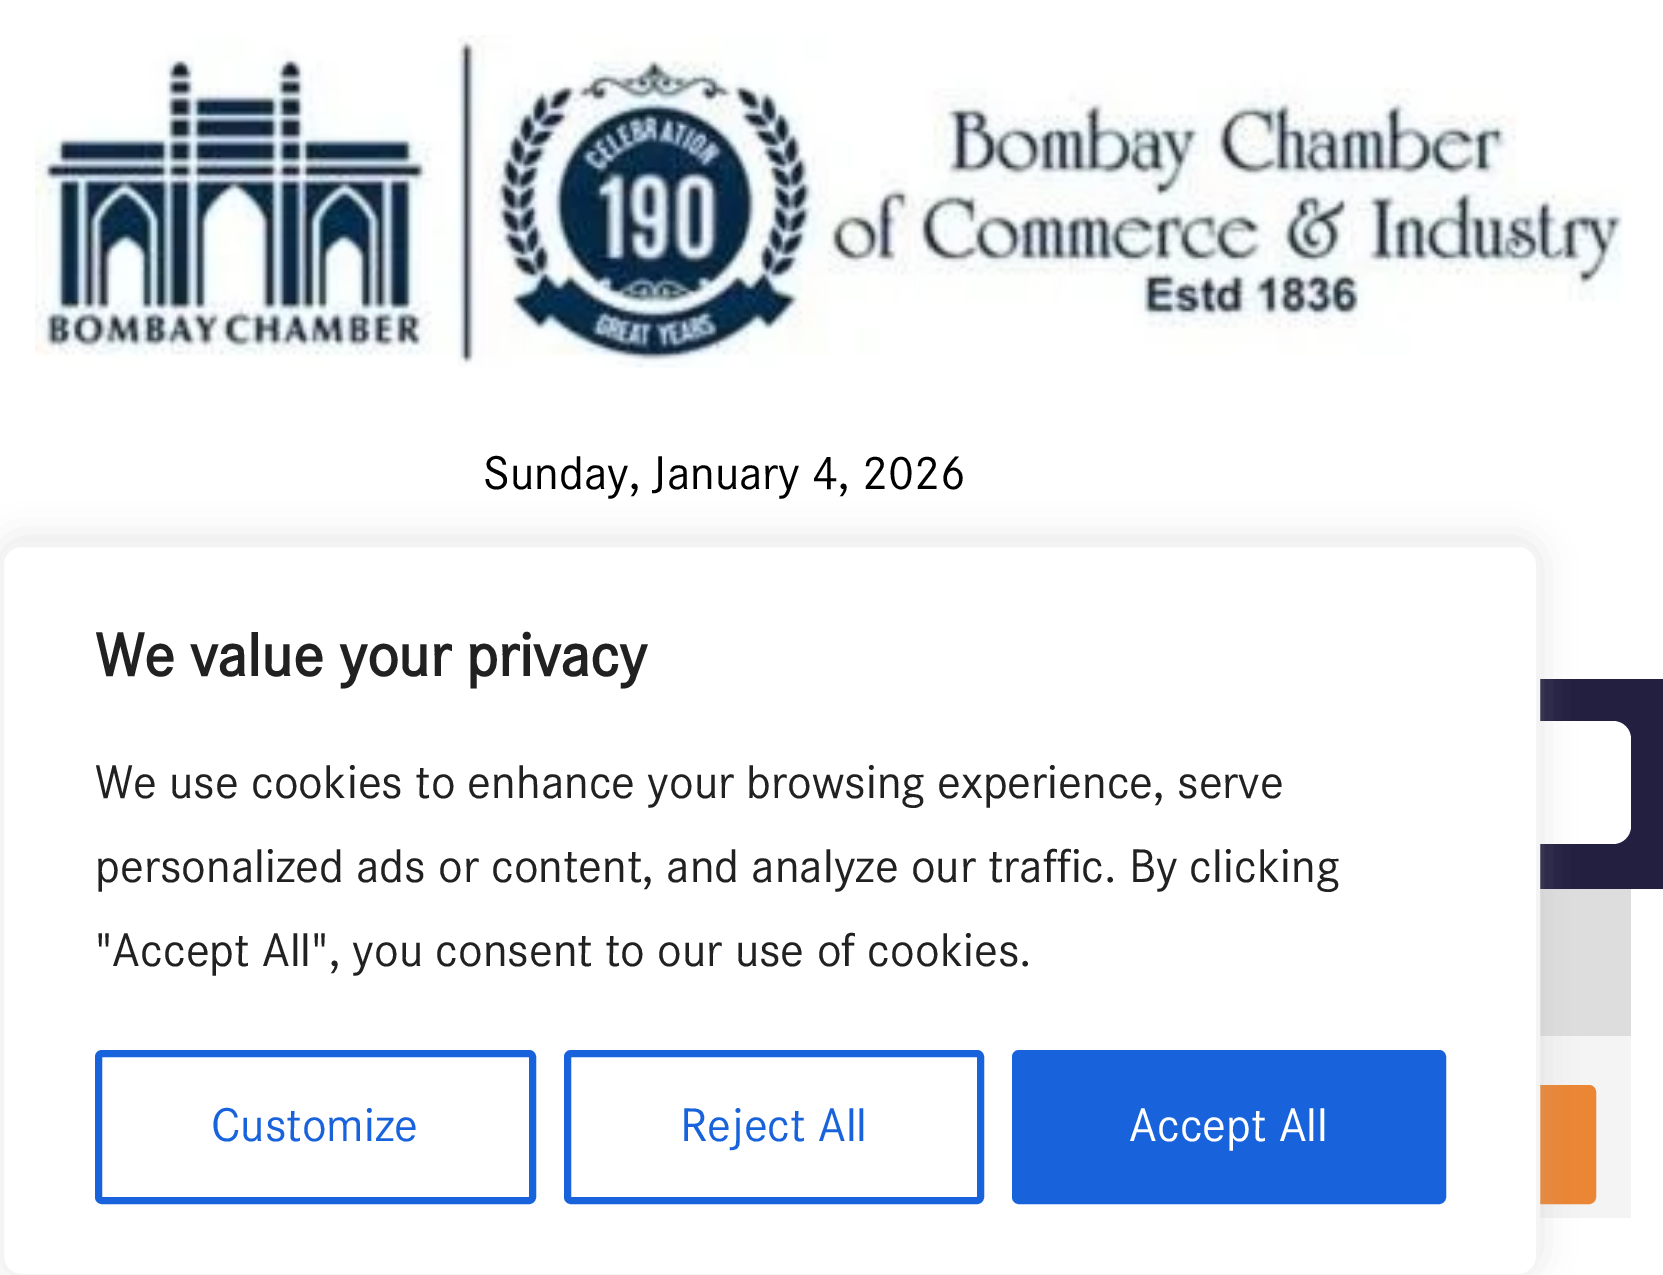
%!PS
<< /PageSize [1663 1275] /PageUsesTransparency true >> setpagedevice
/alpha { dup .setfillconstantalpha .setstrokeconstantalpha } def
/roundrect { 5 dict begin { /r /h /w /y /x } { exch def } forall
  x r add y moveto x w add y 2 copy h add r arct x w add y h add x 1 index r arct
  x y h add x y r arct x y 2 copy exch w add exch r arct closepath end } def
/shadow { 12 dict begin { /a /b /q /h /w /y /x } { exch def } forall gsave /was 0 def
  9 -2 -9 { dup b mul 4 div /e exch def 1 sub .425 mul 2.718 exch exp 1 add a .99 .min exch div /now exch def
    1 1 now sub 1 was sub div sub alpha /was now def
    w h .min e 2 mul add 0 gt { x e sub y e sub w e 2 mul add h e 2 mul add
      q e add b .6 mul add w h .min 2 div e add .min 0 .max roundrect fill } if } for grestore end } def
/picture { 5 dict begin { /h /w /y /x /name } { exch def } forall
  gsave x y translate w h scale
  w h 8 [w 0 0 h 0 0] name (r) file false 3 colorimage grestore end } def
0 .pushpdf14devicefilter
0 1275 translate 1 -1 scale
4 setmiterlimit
1 setgray
0 0 1663 1275 rectfill
(img1.rgb) 35 35 1588 333 picture
/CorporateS-Regular [49 0 0 -49 0 0] selectfont
0 setgray
483 489 moveto (Sunday, January 4, 2026) show
gsave newpath 1540 679 moveto 1663 679 lineto 1663 889 lineto 1540 889 lineto closepath clip newpath
<< /ShadingType 2 /ColorSpace /DeviceRGB /Coords [644 1189 1022 379] /Extend [true true] /Function << /FunctionType 3 /Domain [0 1] /Functions [<< /FunctionType 2 /Domain [0 1] /C0 [0.075 0.102 0.459] /C1 [0.075 0.102 0.459] /N 1 >> << /FunctionType 2 /Domain [0 1] /C0 [0.075 0.102 0.459] /C1 [0.137 0.122 0.255] /N 1 >> << /FunctionType 2 /Domain [0 1] /C0 [0.137 0.122 0.255] /C1 [0.137 0.122 0.255] /N 1 >>] /Bounds [0.25 0.6] /Encode [0 1 0 1 0 1] >> >> shfill grestore
1 setgray
931 721 700 123 18 roundrect fill
0.867 setgray
1540 889 91 147 rectfill
0.957 setgray
1540 1036 91 182 rectfill
0.918 0.525 0.204 setrgbcolor
1441 1087 153 115 5 roundrect gsave fill grestore
4 setlinewidth
stroke
0.675 0.671 0.671 setrgbcolor
0 539 1540 735 21 17.5 0.3 shadow
1 setgray
2 545 1536 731 19 roundrect gsave fill grestore
0.957 setgray
stroke
/CorporateS-Bold [63 0 0 -63 0 0] selectfont
0.129 setgray
95 676 moveto (We value your privacy) show
/CorporateS-Regular [49 0 0 -49 0 0] selectfont
95 798 moveto (We use cookies to enhance your browsing experience, serve) show
95 882 moveto (personalized ads or content, and analyze our traffic. By clicking) show
95 966 moveto ("Accept All", you consent to our use of cookies.) show
0.094 0.388 0.863 setrgbcolor
7 setlinewidth
98.5 1053.5 434 147 3.5 roundrect stroke
211 1141 moveto (Customize) show
567.5 1053.5 413 147 3.5 roundrect stroke
680 1141 moveto (Reject All) show
1015.5 1053.5 427 147 3.5 roundrect gsave fill grestore
stroke
1 setgray
1129 1141 moveto (Accept All) show
.poppdf14devicefilter showpage
